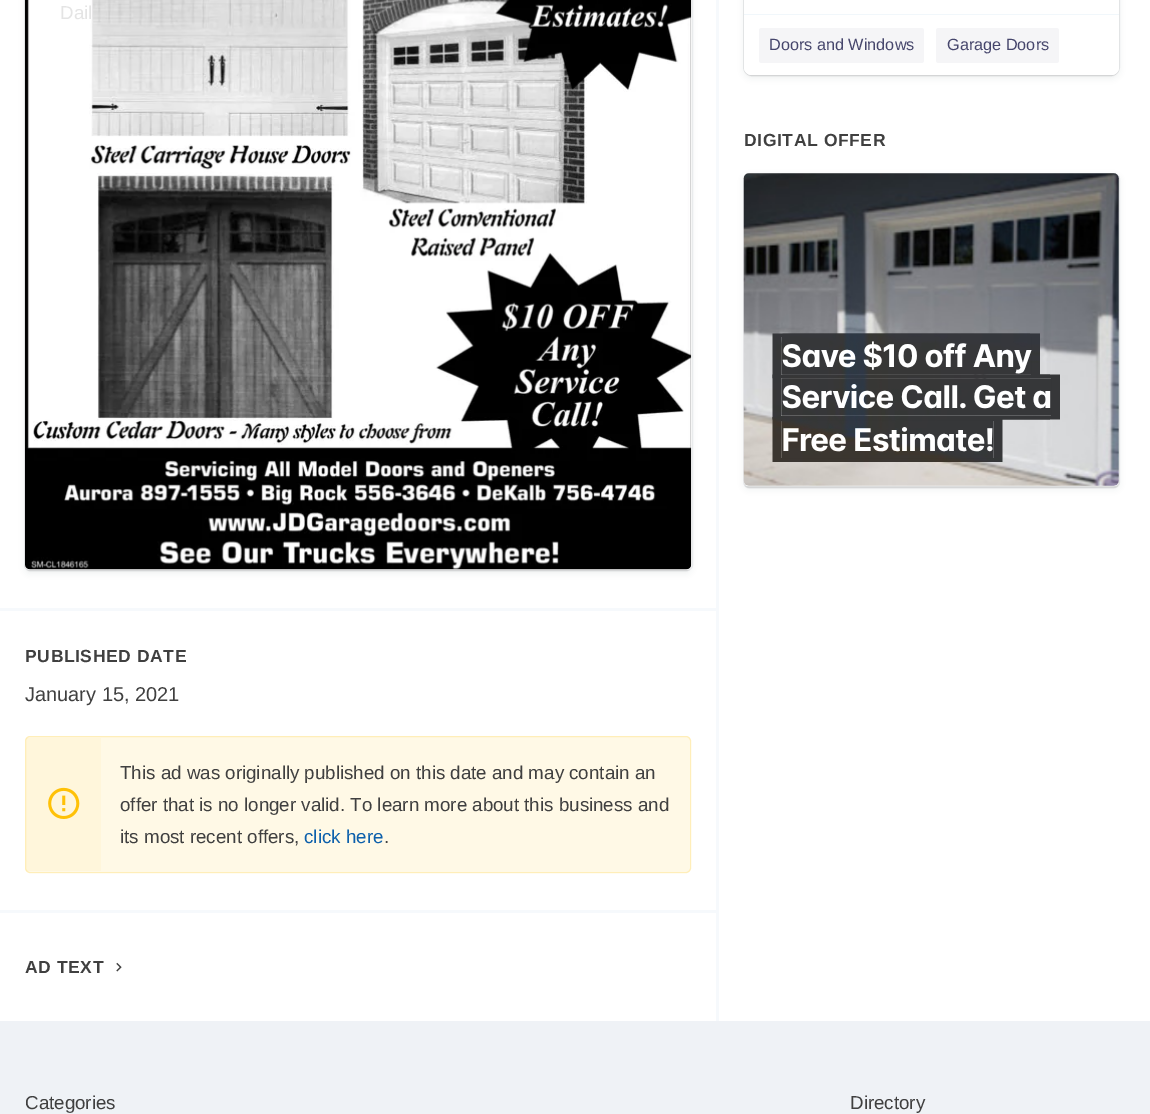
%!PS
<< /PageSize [1150 1114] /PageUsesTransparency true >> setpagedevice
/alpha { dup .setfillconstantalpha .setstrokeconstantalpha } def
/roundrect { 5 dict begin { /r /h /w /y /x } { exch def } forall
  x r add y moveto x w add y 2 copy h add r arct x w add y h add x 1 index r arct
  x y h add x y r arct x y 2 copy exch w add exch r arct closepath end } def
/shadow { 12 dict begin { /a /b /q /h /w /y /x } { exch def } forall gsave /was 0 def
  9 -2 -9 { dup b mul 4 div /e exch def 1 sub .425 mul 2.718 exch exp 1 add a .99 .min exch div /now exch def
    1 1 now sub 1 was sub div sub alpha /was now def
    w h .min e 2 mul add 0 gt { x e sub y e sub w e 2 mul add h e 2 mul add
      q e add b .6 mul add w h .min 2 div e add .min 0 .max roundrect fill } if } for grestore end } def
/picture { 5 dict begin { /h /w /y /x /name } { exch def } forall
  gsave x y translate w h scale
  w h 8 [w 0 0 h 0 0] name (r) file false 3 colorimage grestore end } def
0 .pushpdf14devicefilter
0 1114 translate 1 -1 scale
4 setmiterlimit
1 setgray
0 0 1150 1114 rectfill
0.235 0.259 0.341 setrgbcolor
25 -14 666 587 5 3 0.08 shadow
0.08 alpha
24.5 -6.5 668 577 5.5 roundrect stroke
1 alpha
0 setgray
25 -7 666 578 5 0.5 0.08 shadow
(img2.rgb) 25 0 667 570 picture
/LiberationSans-Regular [18.75 0 0 -18.75 0 0] selectfont
0.894 setgray
60 19 moveto (Dail) show
0.235 0.259 0.341 setrgbcolor
744 -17 375 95 8 3 0.08 shadow
0.08 alpha
743.5 -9.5 376 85 8.5 roundrect stroke
1 alpha
0 setgray
744 -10 375 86 8 0.5 0.08 shadow
1 setgray
744 -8 375 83 8 roundrect fill
newpath 744 14 moveto 1119 14 lineto 1119 67 lineto 1119 71.5 1115.5 75 1111 75 curveto 752 75 lineto 747.5 75 744 71.5 744 67 curveto closepath fill
0.945 0.969 0.984 setrgbcolor
744 14 375 1 rectfill
0.961 0.961 0.969 setrgbcolor
759 28 165 35 2.5 roundrect fill
/LiberationSans-Regular [16.25 0 0 -16.25 0 0] selectfont
0.275 0.275 0.424 setrgbcolor
769 50 moveto (Doors and Windows) show
0.961 0.961 0.969 setrgbcolor
936 28 123 35 2.5 roundrect fill
0.275 0.275 0.424 setrgbcolor
947 50 moveto (Garage Doors) show
/LiberationSans-Bold [17.5 0 0 -17.5 0 0] selectfont
0.251 setgray
744 146 moveto 0.6 0 (DIGITAL OFFER) ashow
0.235 0.259 0.341 setrgbcolor
744 176 375 313 5 3 0.08 shadow
0.08 alpha
743.5 173.5 376 314 5.5 roundrect stroke
1 alpha
0 setgray
744 175 375 313 5 0.5 0.08 shadow
(img1.rgb) 743 173 376 313 picture
0.965 0.976 0.988 setrgbcolor
716 0 3 1021 rectfill
0 608 716 3 rectfill
0 910 716 3 rectfill
0.251 setgray
25 662 moveto 0.6 0 (PUBLISHED DATE) ashow
/LiberationSans-Regular [20 0 0 -20 0 0] selectfont
25 701 moveto (January 15, 2021) show
1 0.976 0.902 setrgbcolor
25 736 666 137 5 roundrect fill
0.2 alpha
1 0.757 0.027 setrgbcolor
25.5 736.5 665 136 4.5 roundrect stroke
1 alpha
(img3.rgb) 48 787 32 32 picture
0.05 alpha
26 738 75 133 rectfill
/LiberationSans-Regular [18.75 0 0 -18.75 0 0] selectfont
1 alpha
0.251 setgray
120 779 moveto (This ad was originally published on this date and may contain an) show
120 811 moveto (offer that is no longer valid. To learn more about this business and) show
120 843 moveto (its most recent offers,) show
0.051 0.376 0.671 setrgbcolor
304 843 moveto (click here) show
0.251 setgray
384 843 moveto (.) show
/LiberationSans-Bold [17.5 0 0 -17.5 0 0] selectfont
25 973 moveto 0.6 0 (AD TEXT) ashow
(img4.rgb) 116 962 6 10 picture
0.937 0.949 0.965 setrgbcolor
0 1021 1150 93 rectfill
/LiberationSans-Regular [18.75 0 0 -18.75 0 0] selectfont
0.251 setgray
25 1109 moveto (Categories) show
850 1109 moveto (Directory) show
.poppdf14devicefilter showpage
